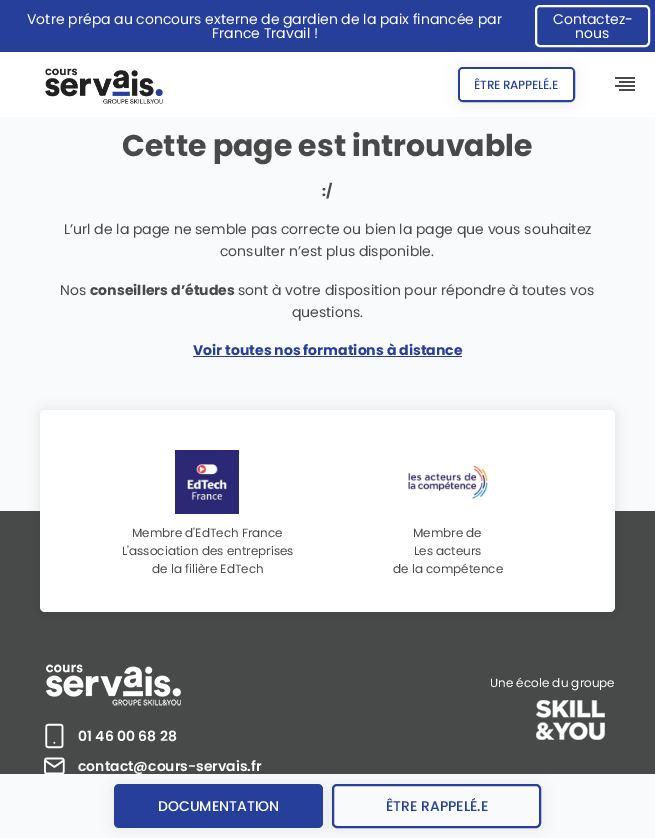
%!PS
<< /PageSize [655 838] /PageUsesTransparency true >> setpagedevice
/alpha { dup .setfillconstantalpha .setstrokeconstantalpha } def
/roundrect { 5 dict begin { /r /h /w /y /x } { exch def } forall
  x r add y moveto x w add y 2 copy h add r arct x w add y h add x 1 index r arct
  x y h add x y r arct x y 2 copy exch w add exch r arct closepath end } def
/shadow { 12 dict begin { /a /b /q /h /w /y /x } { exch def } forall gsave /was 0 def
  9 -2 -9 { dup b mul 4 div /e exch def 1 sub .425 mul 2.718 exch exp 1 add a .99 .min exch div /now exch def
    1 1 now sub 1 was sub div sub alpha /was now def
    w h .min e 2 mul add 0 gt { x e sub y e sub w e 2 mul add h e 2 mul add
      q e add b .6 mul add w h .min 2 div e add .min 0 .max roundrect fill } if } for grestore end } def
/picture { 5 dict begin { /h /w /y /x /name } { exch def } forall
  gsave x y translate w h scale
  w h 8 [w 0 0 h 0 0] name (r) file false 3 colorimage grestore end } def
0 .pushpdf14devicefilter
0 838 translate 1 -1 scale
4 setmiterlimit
0.976 0.98 0.984 setrgbcolor
0 0 655 838 rectfill
0.149 0.247 0.608 setrgbcolor
0 0 655 52 rectfill
/Poppins-Regular [14 0 0 -14 0 0] selectfont
1 setgray
27 24 moveto (Votre prépa au concours externe de gardien de la paix financée par) show
212 38 moveto (France Travail !) show
2 setlinewidth
536 6 113 40 4 roundrect stroke
553 24 moveto (Contactez-) show
575 38 moveto (nous) show
gsave
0 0 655 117 rectclip
0 setgray
0 53 655 65 0 7 0.1 shadow
grestore
0 52 655 65 rectfill
(img1.rgb) 45 68 118 36 picture
0.282 0.286 0.286 setrgbcolor
458 68 117 35 5 7 0.1 shadow
0.149 0.247 0.608 setrgbcolor
459 68 115 33 4 roundrect stroke
1 setgray
460 69 113 31 3 roundrect fill
/Poppins-Medium [12 0 0 -12 0 0] selectfont
0.149 0.247 0.608 setrgbcolor
474 89 moveto -0.25 0 (ÊTRE RAPPELÉ.E) ashow
0.282 0.286 0.286 setrgbcolor
615 77 20 2 rectfill
619 81 16 2 rectfill
615 85 20 2 rectfill
619 89 16 2 rectfill
0 511 655 263 rectfill
114 785 209 44 5 7 0.1 shadow
0.149 0.247 0.608 setrgbcolor
114 784 209 44 5 roundrect fill
/Poppins-Medium [14 0 0 -14 0 0] selectfont
1 setgray
158 811 moveto (DOCUMENTATION) show
0.282 0.286 0.286 setrgbcolor
332 785 209 44 5 7 0.1 shadow
0.976 0.98 0.984 setrgbcolor
333 785 207 42 4 roundrect gsave fill grestore
0.149 0.247 0.608 setrgbcolor
stroke
386 811 moveto (ÊTRE RAPPELÉ.E) show
/Poppins-Bold [30 0 0 -30 0 0] selectfont
0.282 0.286 0.286 setrgbcolor
122 156 moveto (Cette page est introuvable) show
/Poppins-Bold [14 0 0 -14 0 0] selectfont
322 196 moveto (:/) show
/Poppins-Regular [14 0 0 -14 0 0] selectfont
64 234 moveto (L’url de la page ne semble pas correcte ou bien la page que vous souhaitez) show
220 256 moveto (consulter n’est plus disponible.) show
60 295 moveto (Nos) show
/Poppins-Bold [14 0 0 -14 0 0] selectfont
90 295 moveto (conseillers d’études) show
/Poppins-Regular [14 0 0 -14 0 0] selectfont
238 295 moveto (sont à votre disposition pour répondre à toutes vos) show
292 317 moveto (questions.) show
/Poppins-Bold [14 0 0 -14 0 0] selectfont
0.149 0.247 0.608 setrgbcolor
193 355 moveto (Voir toutes nos formations à distance) show
193 356 269 1 rectfill
0 setgray
40 411 575 202 5 7 0.1 shadow
1 setgray
40 410 575 202 5 roundrect fill
(img2.rgb) 175 450 64 64 picture
/Poppins-Regular [12 0 0 -12 0 0] selectfont
0.282 0.286 0.286 setrgbcolor
132 537 moveto (Membre d'EdTech France) show
122 555 moveto (L'association des entreprises) show
152 573 moveto (de la filière EdTech) show
(img3.rgb) 408 465 80 34 picture
413 537 moveto (Membre de) show
414 555 moveto (Les acteurs) show
393 573 moveto (de la compétence) show
1 setgray
490 687 moveto (Une école du groupe) show
(img4.rgb) 536 700 69 40 picture
(img5.rgb) 46 664 135 42 picture
(img6.rgb) 45 723 19 26 picture
/Poppins-SemiBold [14 0 0 -14 0 0] selectfont
78 741 moveto (01 46 00 68 28) show
(img7.rgb) 44 757 21 17 picture
78 771 moveto (contact@cours-servais.fr) show
.poppdf14devicefilter showpage
